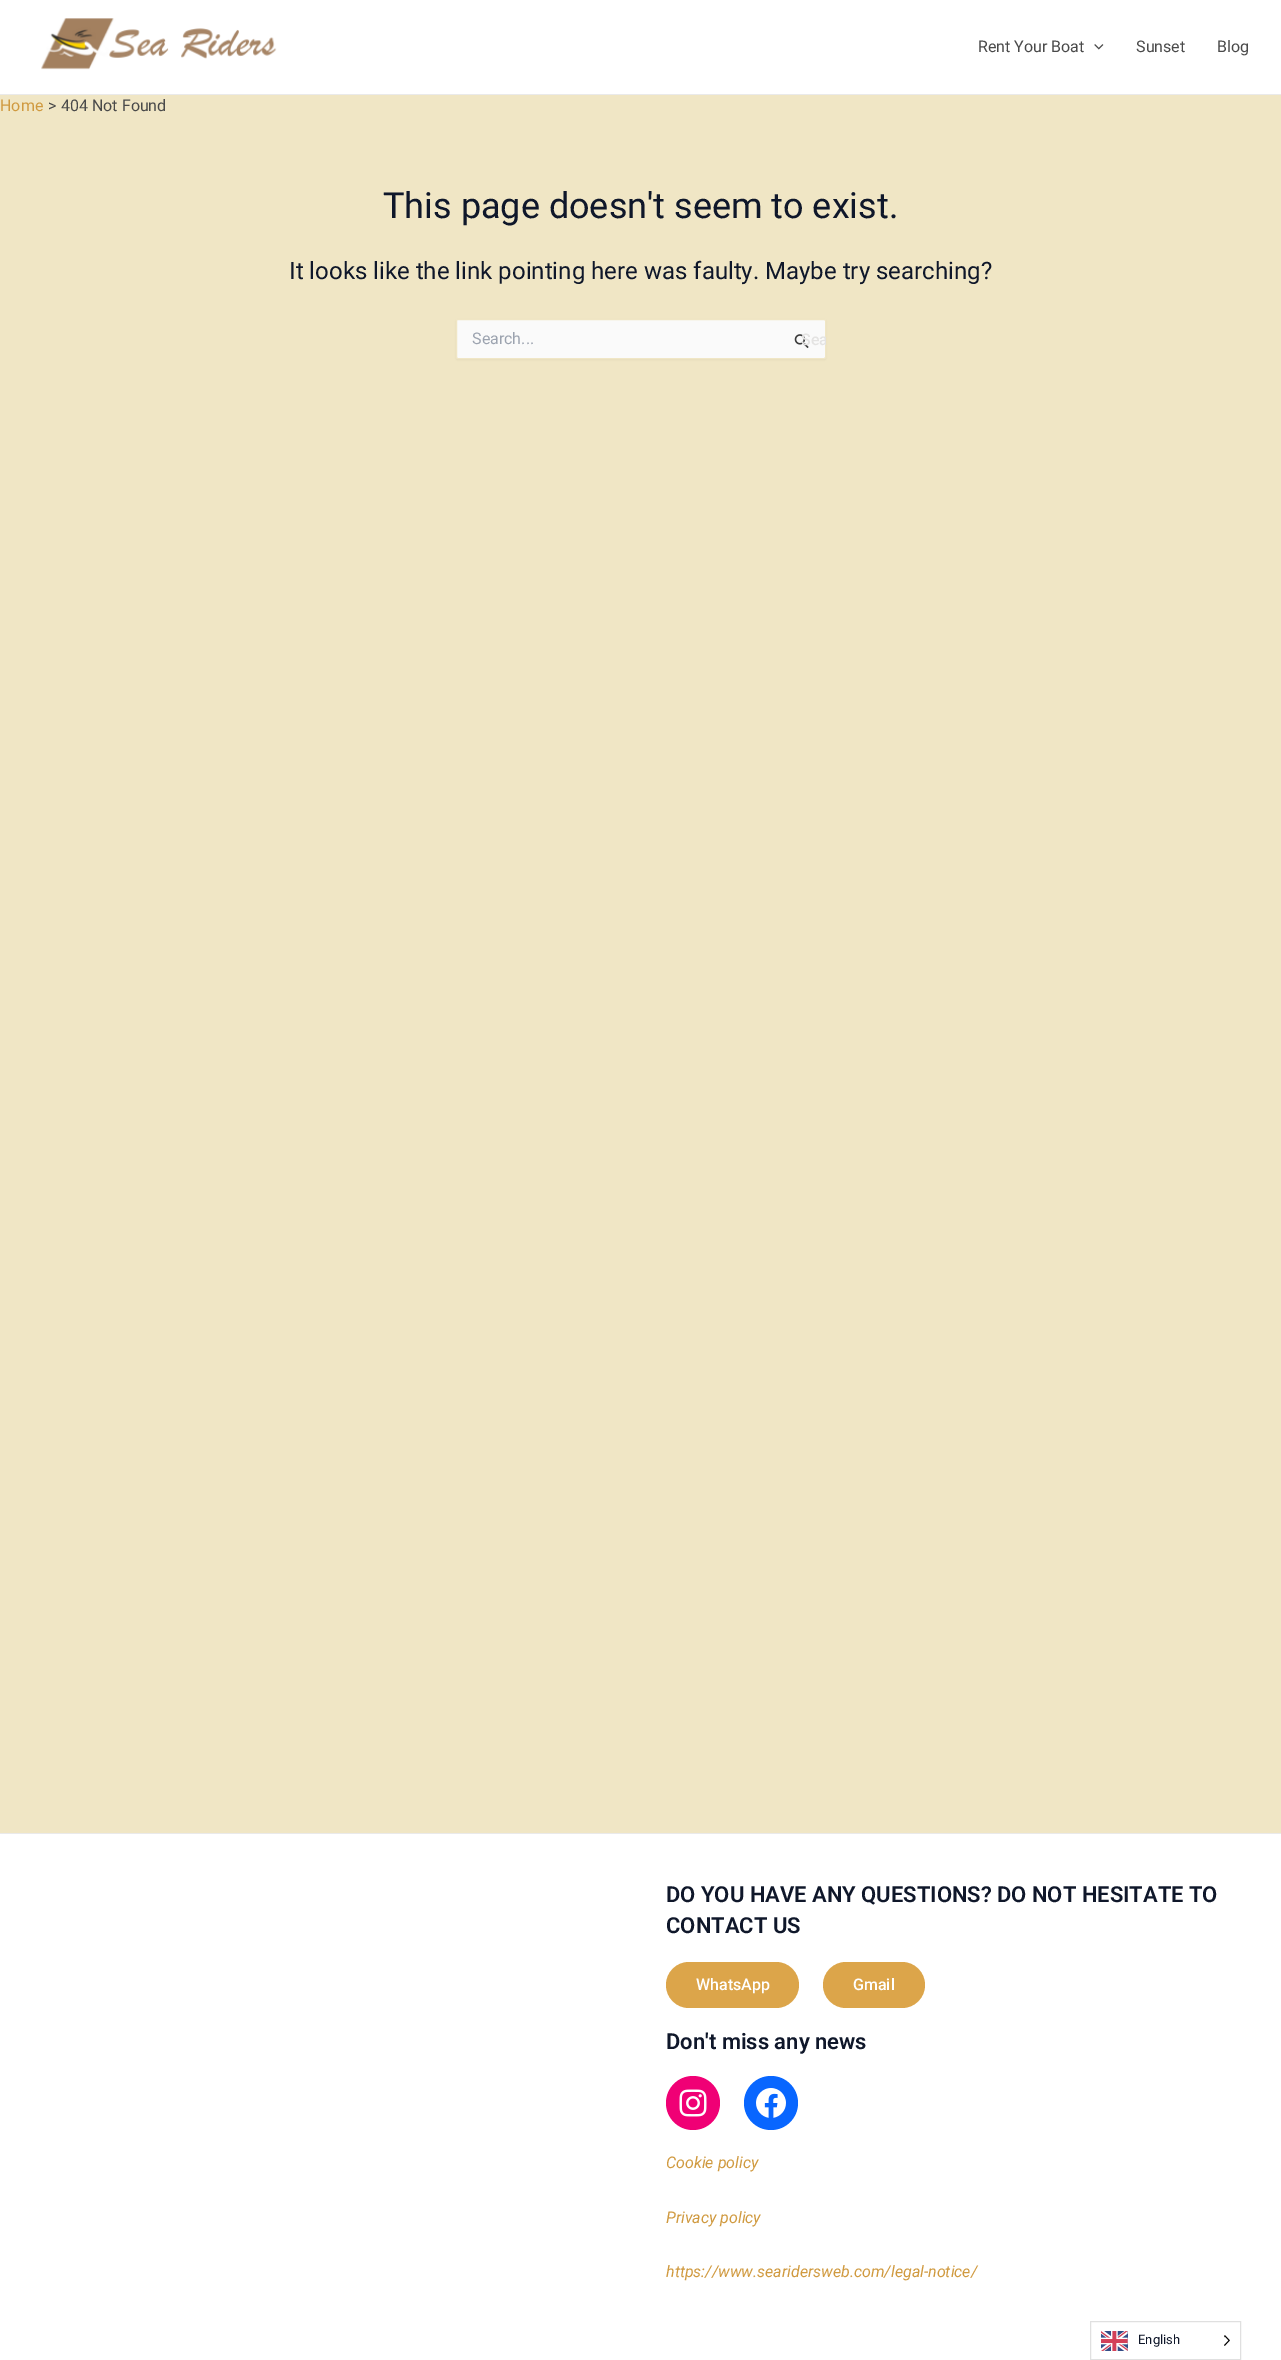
%!PS
<< /PageSize [1281 2360] /PageUsesTransparency true >> setpagedevice
/alpha { dup .setfillconstantalpha .setstrokeconstantalpha } def
/roundrect { 5 dict begin { /r /h /w /y /x } { exch def } forall
  x r add y moveto x w add y 2 copy h add r arct x w add y h add x 1 index r arct
  x y h add x y r arct x y 2 copy exch w add exch r arct closepath end } def
/shadow { 12 dict begin { /a /b /q /h /w /y /x } { exch def } forall gsave /was 0 def
  9 -2 -9 { dup b mul 4 div /e exch def 1 sub .425 mul 2.718 exch exp 1 add a .99 .min exch div /now exch def
    1 1 now sub 1 was sub div sub alpha /was now def
    w h .min e 2 mul add 0 gt { x e sub y e sub w e 2 mul add h e 2 mul add
      q e add b .6 mul add w h .min 2 div e add .min 0 .max roundrect fill } if } for grestore end } def
/picture { 5 dict begin { /h /w /y /x /name } { exch def } forall
  gsave x y translate w h scale
  w h 8 [w 0 0 h 0 0] name (r) file false 3 colorimage grestore end } def
0 .pushpdf14devicefilter
0 2360 translate 1 -1 scale
4 setmiterlimit
0.941 0.902 0.773 setrgbcolor
0 0 1281 2360 rectfill
1 setgray
0 0 1281 94 rectfill
0.918 setgray
0 94 1281 1 rectfill
(img1.rgb) 41 18 236 52 picture
/Roboto-Regular [16 0 0 -16 0 0] selectfont
0.29 setgray
978 52 moveto (Rent Your Boat) show
(img2.rgb) 1094 44 10 6 picture
1136 52 moveto (Sunset) show
1217 52 moveto (Blog) show
0.816 0.604 0.251 setrgbcolor
0 111 moveto (Home) show
0.29 setgray
48 111 moveto (>) show
61 111 moveto (404 Not Found) show
/Roboto-Regular [36 0 0 -36 0 0] selectfont
0.059 0.09 0.165 setrgbcolor
383 218 moveto (This page doesn't seem to exist.) show
/Roboto-Regular [24 0 0 -24 0 0] selectfont
289 279 moveto (It looks like the link pointing here was faulty. Maybe try searching?) show
0 setgray
456 320 370 40 2 1 0.05 shadow
0.98 setgray
456.5 319.5 369 39 1.5 roundrect gsave fill grestore
0.941 0.902 0.773 setrgbcolor
stroke
/Roboto-Regular [16 0 0 -16 0 0] selectfont
0.612 0.639 0.686 setrgbcolor
472 344 moveto (Search...) show
(img3.rgb) 794 334 15 15 picture
gsave
781 319 45 42 2 roundrect clip newpath
/Roboto-Medium [16 0 0 -16 0 0] selectfont
0.894 0.89 0.886 setrgbcolor
801 345 moveto (Sea) show
grestore
1 setgray
0 1834 1281 526 rectfill
0.918 setgray
0 1833 1281 1 rectfill
/Roboto-SemiBold [22 0 0 -22 0 0] selectfont
0.059 0.09 0.165 setrgbcolor
666 1902 moveto (DO YOU HAVE ANY QUESTIONS? DO NOT HESITATE TO) show
666 1933 moveto (CONTACT US) show
0.863 0.647 0.29 setrgbcolor
666 1962 133 46 23 roundrect fill
/Roboto-Medium [16 0 0 -16 0 0] selectfont
1 setgray
696 1990 moveto (WhatsApp) show
0.863 0.647 0.29 setrgbcolor
823 1962 102 46 23 roundrect fill
1 setgray
853 1990 moveto (Gmail) show
/Roboto-SemiBold [22 0 0 -22 0 0] selectfont
0.059 0.09 0.165 setrgbcolor
666 2049 moveto (Don't miss any news) show
0.941 0 0.459 setrgbcolor
newpath 693 2103 27 0 360 arc closepath fill
(img4.rgb) 679 2089 28 28 picture
0.031 0.4 1 setrgbcolor
newpath 771 2103 27 0 360 arc closepath fill
(img5.rgb) 756 2088 30 30 picture
/Roboto-Italic [16 0 0 -16 0 0] selectfont
0.816 0.604 0.251 setrgbcolor
666 2168 moveto (Cookie policy) show
666 2223 moveto (Privacy policy) show
666 2277 moveto (https://www.searidersweb.com/legal-notice/) show
0.878 setgray
1090.5 2321.5 150 38 rectstroke
(img6.rgb) 1101 2331 27 20 picture
/Roboto-Regular [13 0 0 -13 0 0] selectfont
0.059 0.09 0.165 setrgbcolor
1138 2344 moveto (English) show
(img7.rgb) 1224 2335 6 11 picture
.poppdf14devicefilter showpage
